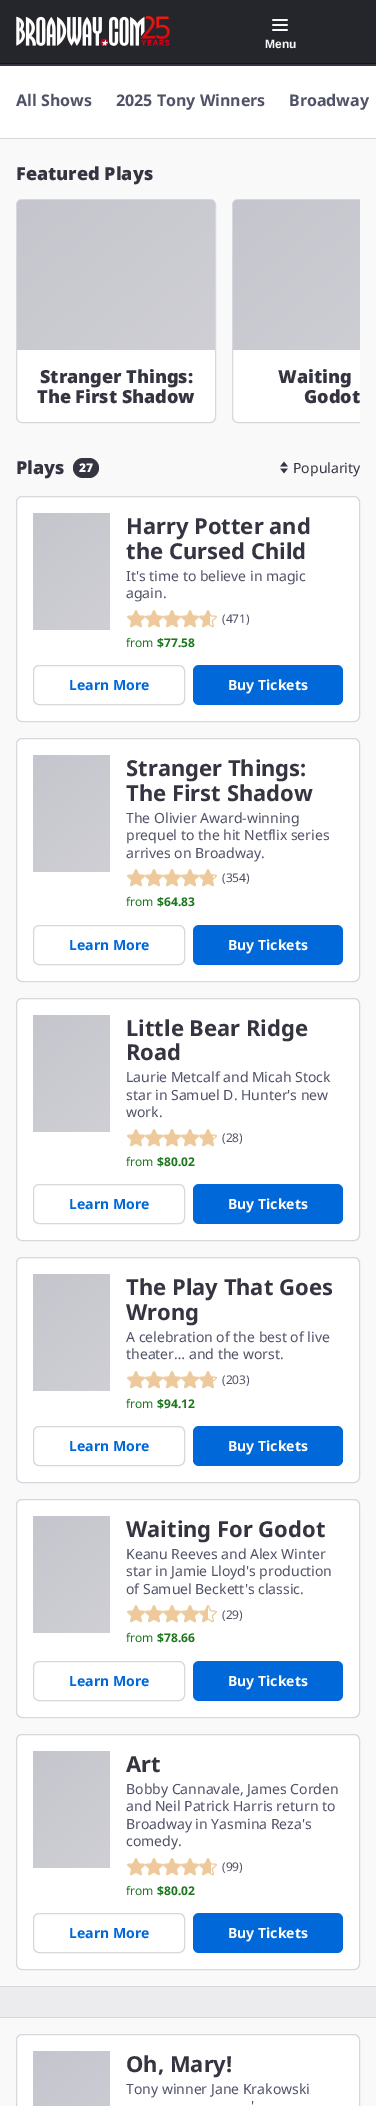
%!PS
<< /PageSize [376 2106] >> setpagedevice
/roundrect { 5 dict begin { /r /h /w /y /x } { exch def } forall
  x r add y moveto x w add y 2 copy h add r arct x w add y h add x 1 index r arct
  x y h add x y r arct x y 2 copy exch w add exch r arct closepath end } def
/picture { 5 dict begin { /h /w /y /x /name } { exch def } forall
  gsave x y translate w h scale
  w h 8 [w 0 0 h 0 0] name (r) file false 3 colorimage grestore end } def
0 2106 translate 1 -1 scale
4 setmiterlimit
0.145 0.149 0.169 setrgbcolor
0 0 376 2106 rectfill
0.086 setgray
0 63 376 1 rectfill
(img1.rgb) 16 16 154 30 picture
(img2.rgb) 272 19 16 12 picture
/LiberationSans-Bold [12 0 0 -12 0 0] selectfont
0.976 0.976 0.98 setrgbcolor
265 48 moveto (Menu) show
0.204 0.208 0.251 setrgbcolor
0 64 376 2 rectfill
1 setgray
0 66 376 72 rectfill
0.843 0.847 0.867 setrgbcolor
0 138 376 1 rectfill
/NotoSans-Bold [16 0 0 -16 0 0] selectfont
0.314 0.325 0.408 setrgbcolor
16 106 moveto (All Shows) show
116 106 moveto (2025 Tony Winners) show
289 106 moveto (Broadway) show
0.976 0.976 0.98 setrgbcolor
0 139 376 1967 rectfill
/NotoSans-Black [18 0 0 -18 0 0] selectfont
0.204 0.208 0.251 setrgbcolor
16 180 moveto (Featured Plays) show
1 setgray
16.5 199.5 199 223 5.5 roundrect gsave fill grestore
0.843 0.847 0.867 setrgbcolor
stroke
gsave newpath 23 200 moveto 209 200 lineto 212.5 200 215 202.5 215 206 curveto 215 350 lineto 17 350 lineto 17 206 lineto 17 202.5 19.5 200 23 200 curveto closepath clip newpath
<< /ShadingType 2 /ColorSpace /DeviceRGB /Coords [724 871 102 129] /Extend [true true] /Function << /FunctionType 2 /Domain [0 1] /C0 [0.925 0.925 0.937] /C1 [0.773 0.776 0.804] /N 1 >> >> shfill grestore
0.204 0.208 0.251 setrgbcolor
40 383 moveto (Stranger Things:) show
37 403 moveto (The First Shadow) show
1 setgray
newpath 238 199 moveto 360 199 lineto 360 423 lineto 238 423 lineto 234.5 423 232 420.5 232 417 curveto 232 205 lineto 232 201.5 234.5 199 238 199 curveto closepath fill
gsave
16 191 344 240 rectclip
0.843 0.847 0.867 setrgbcolor
232.5 199.5 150 223 5.5 roundrect stroke
grestore
gsave newpath 239 200 moveto 360 200 lineto 360 350 lineto 233 350 lineto 233 206 lineto 233 202.5 235.5 200 239 200 curveto closepath clip newpath
<< /ShadingType 2 /ColorSpace /DeviceRGB /Coords [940 871 318 129] /Extend [true true] /Function << /FunctionType 2 /Domain [0 1] /C0 [0.925 0.925 0.937] /C1 [0.773 0.776 0.804] /N 1 >> >> shfill grestore
0.204 0.208 0.251 setrgbcolor
278 383 moveto (Waiting) show
304 403 moveto (Godot) show
16 474 moveto (Plays) show
73 458 26 20 10 roundrect fill
/NotoSans-Black [12 0 0 -12 0 0] selectfont
1 setgray
79 472 moveto (27) show
(img3.rgb) 280 461 8 13 picture
/NotoSans-Regular [14 0 0 -14 0 0] selectfont
0.204 0.208 0.251 setrgbcolor
293 473 moveto (Popularity) show
1 setgray
16.5 496.5 343 225 5.5 roundrect gsave fill grestore
0.843 0.847 0.867 setrgbcolor
stroke
gsave newpath 33 513 moveto 110 513 lineto 110 630 lineto 33 630 lineto closepath clip newpath
<< /ShadingType 2 /ColorSpace /DeviceRGB /Coords [366 960 8 534] /Extend [true true] /Function << /FunctionType 2 /Domain [0 1] /C0 [0.925 0.925 0.937] /C1 [0.773 0.776 0.804] /N 1 >> >> shfill grestore
/NotoSans-Bold [22 0 0 -22 0 0] selectfont
0.204 0.208 0.251 setrgbcolor
126 534 moveto (Harry Potter and) show
126 559 moveto (the Cursed Child) show
/NotoSans-Regular [14 0 0 -14 0 0] selectfont
0.314 0.325 0.408 setrgbcolor
126 581 moveto (It's time to believe in magic) show
126 598 moveto (again.) show
(img4.rgb) 127 610 18 18 picture
(img4.rgb) 145 610 18 18 picture
(img4.rgb) 163 610 18 18 picture
(img4.rgb) 181 610 18 18 picture
(img5.rgb) 199 610 18 18 picture
/NotoSans-Regular [12 0 0 -12 0 0] selectfont
222 623 moveto (\(471\)) show
0.114 0.471 0.114 setrgbcolor
126 647 moveto (from) show
/NotoSans-Bold [12 0 0 -12 0 0] selectfont
157 647 moveto ($77.58) show
0.843 0.847 0.867 setrgbcolor
33.5 665.5 151 39 5.5 roundrect stroke
/NotoSans-Bold [14 0 0 -14 0 0] selectfont
0 0.408 0.851 setrgbcolor
69 690 moveto (Learn More) show
193 665 150 40 6 roundrect fill
1 setgray
228 690 moveto (Buy Tickets) show
16.5 738.5 343 243 5.5 roundrect gsave fill grestore
0.843 0.847 0.867 setrgbcolor
stroke
gsave newpath 33 755 moveto 110 755 lineto 110 872 lineto 33 872 lineto closepath clip newpath
<< /ShadingType 2 /ColorSpace /DeviceRGB /Coords [366 1202 8 776] /Extend [true true] /Function << /FunctionType 2 /Domain [0 1] /C0 [0.925 0.925 0.937] /C1 [0.773 0.776 0.804] /N 1 >> >> shfill grestore
/NotoSans-Bold [22 0 0 -22 0 0] selectfont
0.204 0.208 0.251 setrgbcolor
126 776 moveto (Stranger Things:) show
126 801 moveto (The First Shadow) show
/NotoSans-Regular [14 0 0 -14 0 0] selectfont
0.314 0.325 0.408 setrgbcolor
126 823 moveto (The Olivier Award-winning) show
126 840 moveto (prequel to the hit Netflix series) show
126 858 moveto (arrives on Broadway.) show
(img4.rgb) 127 869 18 18 picture
(img4.rgb) 145 869 18 18 picture
(img4.rgb) 163 869 18 18 picture
(img4.rgb) 181 869 18 18 picture
(img6.rgb) 199 869 18 18 picture
/NotoSans-Regular [12 0 0 -12 0 0] selectfont
222 882 moveto (\(354\)) show
0.114 0.471 0.114 setrgbcolor
126 906 moveto (from) show
/NotoSans-Bold [12 0 0 -12 0 0] selectfont
157 906 moveto ($64.83) show
0.843 0.847 0.867 setrgbcolor
33.5 925.5 151 39 5.5 roundrect stroke
/NotoSans-Bold [14 0 0 -14 0 0] selectfont
0 0.408 0.851 setrgbcolor
69 950 moveto (Learn More) show
193 925 150 40 6 roundrect fill
1 setgray
228 950 moveto (Buy Tickets) show
16.5 998.5 343 242 5.5 roundrect gsave fill grestore
0.843 0.847 0.867 setrgbcolor
stroke
gsave newpath 33 1015 moveto 110 1015 lineto 110 1132 lineto 33 1132 lineto closepath clip newpath
<< /ShadingType 2 /ColorSpace /DeviceRGB /Coords [366 1462 8 1036] /Extend [true true] /Function << /FunctionType 2 /Domain [0 1] /C0 [0.925 0.925 0.937] /C1 [0.773 0.776 0.804] /N 1 >> >> shfill grestore
/NotoSans-Bold [22 0 0 -22 0 0] selectfont
0.204 0.208 0.251 setrgbcolor
126 1036 moveto (Little Bear Ridge) show
126 1060 moveto (Road) show
/NotoSans-Regular [14 0 0 -14 0 0] selectfont
0.314 0.325 0.408 setrgbcolor
126 1082 moveto (Laurie Metcalf and Micah Stock) show
126 1100 moveto (star in Samuel D. Hunter's new) show
126 1117 moveto (work.) show
(img4.rgb) 127 1129 18 18 picture
(img4.rgb) 145 1129 18 18 picture
(img4.rgb) 163 1129 18 18 picture
(img4.rgb) 181 1129 18 18 picture
(img6.rgb) 199 1129 18 18 picture
/NotoSans-Regular [12 0 0 -12 0 0] selectfont
222 1142 moveto (\(28\)) show
0.114 0.471 0.114 setrgbcolor
126 1166 moveto (from) show
/NotoSans-Bold [12 0 0 -12 0 0] selectfont
157 1166 moveto ($80.02) show
0.843 0.847 0.867 setrgbcolor
33.5 1184.5 151 39 5.5 roundrect stroke
/NotoSans-Bold [14 0 0 -14 0 0] selectfont
0 0.408 0.851 setrgbcolor
69 1209 moveto (Learn More) show
193 1184 150 40 6 roundrect fill
1 setgray
228 1209 moveto (Buy Tickets) show
16.5 1257.5 343 225 5.5 roundrect gsave fill grestore
0.843 0.847 0.867 setrgbcolor
stroke
gsave newpath 33 1274 moveto 110 1274 lineto 110 1391 lineto 33 1391 lineto closepath clip newpath
<< /ShadingType 2 /ColorSpace /DeviceRGB /Coords [366 1721 8 1295] /Extend [true true] /Function << /FunctionType 2 /Domain [0 1] /C0 [0.925 0.925 0.937] /C1 [0.773 0.776 0.804] /N 1 >> >> shfill grestore
/NotoSans-Bold [22 0 0 -22 0 0] selectfont
0.204 0.208 0.251 setrgbcolor
126 1295 moveto (The Play That Goes) show
126 1320 moveto (Wrong) show
/NotoSans-Regular [14 0 0 -14 0 0] selectfont
0.314 0.325 0.408 setrgbcolor
126 1342 moveto (A celebration of the best of live) show
126 1359 moveto (theater… and the worst.) show
(img4.rgb) 127 1371 18 18 picture
(img4.rgb) 145 1371 18 18 picture
(img4.rgb) 163 1371 18 18 picture
(img4.rgb) 181 1371 18 18 picture
(img6.rgb) 199 1371 18 18 picture
/NotoSans-Regular [12 0 0 -12 0 0] selectfont
222 1384 moveto (\(203\)) show
0.114 0.471 0.114 setrgbcolor
126 1408 moveto (from) show
/NotoSans-Bold [12 0 0 -12 0 0] selectfont
157 1408 moveto ($94.12) show
0.843 0.847 0.867 setrgbcolor
33.5 1426.5 151 39 5.5 roundrect stroke
/NotoSans-Bold [14 0 0 -14 0 0] selectfont
0 0.408 0.851 setrgbcolor
69 1451 moveto (Learn More) show
193 1426 150 40 6 roundrect fill
1 setgray
228 1451 moveto (Buy Tickets) show
16.5 1499.5 343 218 5.5 roundrect gsave fill grestore
0.843 0.847 0.867 setrgbcolor
stroke
gsave newpath 33 1516 moveto 110 1516 lineto 110 1633 lineto 33 1633 lineto closepath clip newpath
<< /ShadingType 2 /ColorSpace /DeviceRGB /Coords [366 1963 8 1537] /Extend [true true] /Function << /FunctionType 2 /Domain [0 1] /C0 [0.925 0.925 0.937] /C1 [0.773 0.776 0.804] /N 1 >> >> shfill grestore
/NotoSans-Bold [22 0 0 -22 0 0] selectfont
0.204 0.208 0.251 setrgbcolor
126 1537 moveto (Waiting For Godot) show
/NotoSans-Regular [14 0 0 -14 0 0] selectfont
0.314 0.325 0.408 setrgbcolor
126 1559 moveto (Keanu Reeves and Alex Winter) show
126 1576 moveto (star in Jamie Lloyd's production) show
126 1594 moveto (of Samuel Beckett's classic.) show
(img4.rgb) 127 1605 18 18 picture
(img4.rgb) 145 1605 18 18 picture
(img4.rgb) 163 1605 18 18 picture
(img4.rgb) 181 1605 18 18 picture
(img7.rgb) 199 1605 18 18 picture
/NotoSans-Regular [12 0 0 -12 0 0] selectfont
222 1619 moveto (\(29\)) show
0.114 0.471 0.114 setrgbcolor
126 1642 moveto (from) show
/NotoSans-Bold [12 0 0 -12 0 0] selectfont
157 1642 moveto ($78.66) show
0.843 0.847 0.867 setrgbcolor
33.5 1661.5 151 39 5.5 roundrect stroke
/NotoSans-Bold [14 0 0 -14 0 0] selectfont
0 0.408 0.851 setrgbcolor
69 1686 moveto (Learn More) show
193 1661 150 40 6 roundrect fill
1 setgray
228 1686 moveto (Buy Tickets) show
16.5 1734.5 343 235 5.5 roundrect gsave fill grestore
0.843 0.847 0.867 setrgbcolor
stroke
gsave newpath 33 1751 moveto 110 1751 lineto 110 1868 lineto 33 1868 lineto closepath clip newpath
<< /ShadingType 2 /ColorSpace /DeviceRGB /Coords [366 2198 8 1772] /Extend [true true] /Function << /FunctionType 2 /Domain [0 1] /C0 [0.925 0.925 0.937] /C1 [0.773 0.776 0.804] /N 1 >> >> shfill grestore
/NotoSans-Bold [22 0 0 -22 0 0] selectfont
0.204 0.208 0.251 setrgbcolor
126 1772 moveto (Art) show
/NotoSans-Regular [14 0 0 -14 0 0] selectfont
0.314 0.325 0.408 setrgbcolor
126 1794 moveto (Bobby Cannavale, James Corden) show
126 1811 moveto (and Neil Patrick Harris return to) show
126 1829 moveto (Broadway in Yasmina Reza's) show
126 1846 moveto (comedy.) show
(img4.rgb) 127 1858 18 18 picture
(img4.rgb) 145 1858 18 18 picture
(img4.rgb) 163 1858 18 18 picture
(img4.rgb) 181 1858 18 18 picture
(img8.rgb) 199 1858 18 18 picture
/NotoSans-Regular [12 0 0 -12 0 0] selectfont
222 1871 moveto (\(99\)) show
0.114 0.471 0.114 setrgbcolor
126 1895 moveto (from) show
/NotoSans-Bold [12 0 0 -12 0 0] selectfont
157 1895 moveto ($80.02) show
0.843 0.847 0.867 setrgbcolor
33.5 1913.5 151 39 5.5 roundrect stroke
/NotoSans-Bold [14 0 0 -14 0 0] selectfont
0 0.408 0.851 setrgbcolor
69 1938 moveto (Learn More) show
193 1913 150 40 6 roundrect fill
1 setgray
228 1938 moveto (Buy Tickets) show
0.925 0.925 0.937 setrgbcolor
0 1987 376 30 rectfill
0.843 0.847 0.867 setrgbcolor
0 2017 376 1 rectfill
0 1986 376 1 rectfill
1 setgray
16.5 2034.5 343 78 5.5 roundrect gsave fill grestore
0.843 0.847 0.867 setrgbcolor
stroke
gsave newpath 33 2051 moveto 110 2051 lineto 110 2106 lineto 33 2106 lineto closepath clip newpath
<< /ShadingType 2 /ColorSpace /DeviceRGB /Coords [366 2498 8 2072] /Extend [true true] /Function << /FunctionType 2 /Domain [0 1] /C0 [0.925 0.925 0.937] /C1 [0.773 0.776 0.804] /N 1 >> >> shfill grestore
/NotoSans-Bold [22 0 0 -22 0 0] selectfont
0.204 0.208 0.251 setrgbcolor
126 2072 moveto (Oh, Mary!) show
/NotoSans-Regular [14 0 0 -14 0 0] selectfont
0.314 0.325 0.408 setrgbcolor
126 2094 moveto (Tony winner Jane Krakowski) show
251 2111 moveto (') show
showpage
